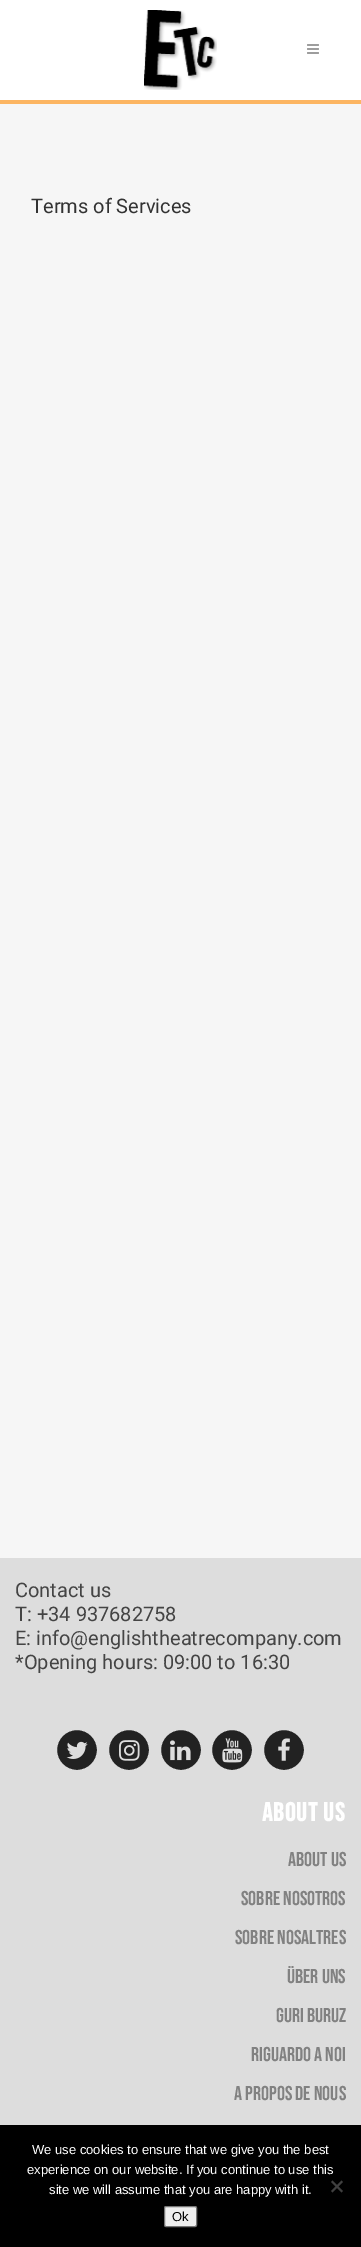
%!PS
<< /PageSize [361 2247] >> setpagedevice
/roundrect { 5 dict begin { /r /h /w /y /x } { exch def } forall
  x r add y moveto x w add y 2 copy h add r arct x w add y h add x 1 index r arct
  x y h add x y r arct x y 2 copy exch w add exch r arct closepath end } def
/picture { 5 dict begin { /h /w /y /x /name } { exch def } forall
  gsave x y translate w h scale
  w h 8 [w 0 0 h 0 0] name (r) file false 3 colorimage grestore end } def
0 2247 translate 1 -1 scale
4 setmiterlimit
0.965 setgray
0 0 361 2247 rectfill
1 setgray
0 0 361 100 rectfill
0.988 0.71 0.384 setrgbcolor
0 100 361 4 rectfill
(img1.rgb) 144 10 73 80 picture
(img2.rgb) 307 44 12 10 picture
/Roboto-Regular [20 0 0 -20 0 0] selectfont
0.2 setgray
31 213 moveto (Terms of Services) show
0.867 setgray
0 1558 361 567 rectfill
0.267 setgray
15 1597 moveto (Contact us) show
15 1621 moveto (T: +34 937682758) show
15 1645 moveto (E: info@englishtheatrecompany.com) show
15 1669 moveto (*Opening hours: 09:00 to 16:30) show
0.133 setgray
newpath 77 1750 21.5 0 360 arc closepath gsave fill grestore
0.867 setgray
3 setlinewidth
stroke
(img3.rgb) 66 1741 22 18 picture
0.133 setgray
newpath 129 1750 21.5 0 360 arc closepath gsave fill grestore
0.867 setgray
stroke
(img4.rgb) 119 1740 21 21 picture
0.133 setgray
newpath 181 1750 21.5 0 360 arc closepath gsave fill grestore
0.867 setgray
stroke
(img5.rgb) 170 1740 21 21 picture
0.133 setgray
newpath 232 1750 21.5 0 360 arc closepath gsave fill grestore
0.867 setgray
stroke
(img6.rgb) 222 1738 21 25 picture
0.133 setgray
newpath 284 1750 21.5 0 360 arc closepath gsave fill grestore
0.867 setgray
stroke
(img7.rgb) 278 1738 12 23 picture
/BebasNeue-Bold [26 0 0 -26 0 0] selectfont
1 setgray
262 1821 moveto 1 0 (ABOUT US) ashow
/BebasNeue-Regular [20 0 0 -20 0 0] selectfont
0.506 setgray
288 1866 moveto (About us) show
241 1905 moveto (Sobre nosotros) show
235 1944 moveto (Sobre nosaltres) show
287 1983 moveto (Über uns) show
276 2022 moveto (Guri buruz) show
251 2061 moveto (Riguardo a noi) show
234 2100 moveto (A propos de nous) show
0 setgray
0 2125 361 122 rectfill
/LiberationSans-Regular [13 0 0 -13 0 0] selectfont
1 setgray
32 2154 moveto (We use cookies to ensure that we give you the best) show
27 2174 moveto (experience on our website. If you continue to use this) show
49 2194 moveto (site we will assume that you are happy with it.) show
0.251 setgray
newpath 341.5 2180.5 moveto 343 2182 lineto 332.5 2192.5 lineto 331 2191 lineto closepath fill
newpath 331 2182 moveto 332.5 2180.5 lineto 343 2191 lineto 341.5 2192.5 lineto closepath fill
0.937 setgray
164.5 2206.5 32 20 1.5 roundrect gsave fill grestore
0.463 setgray
1 setlinewidth
stroke
0 setgray
172 2221 moveto (Ok) show
showpage
